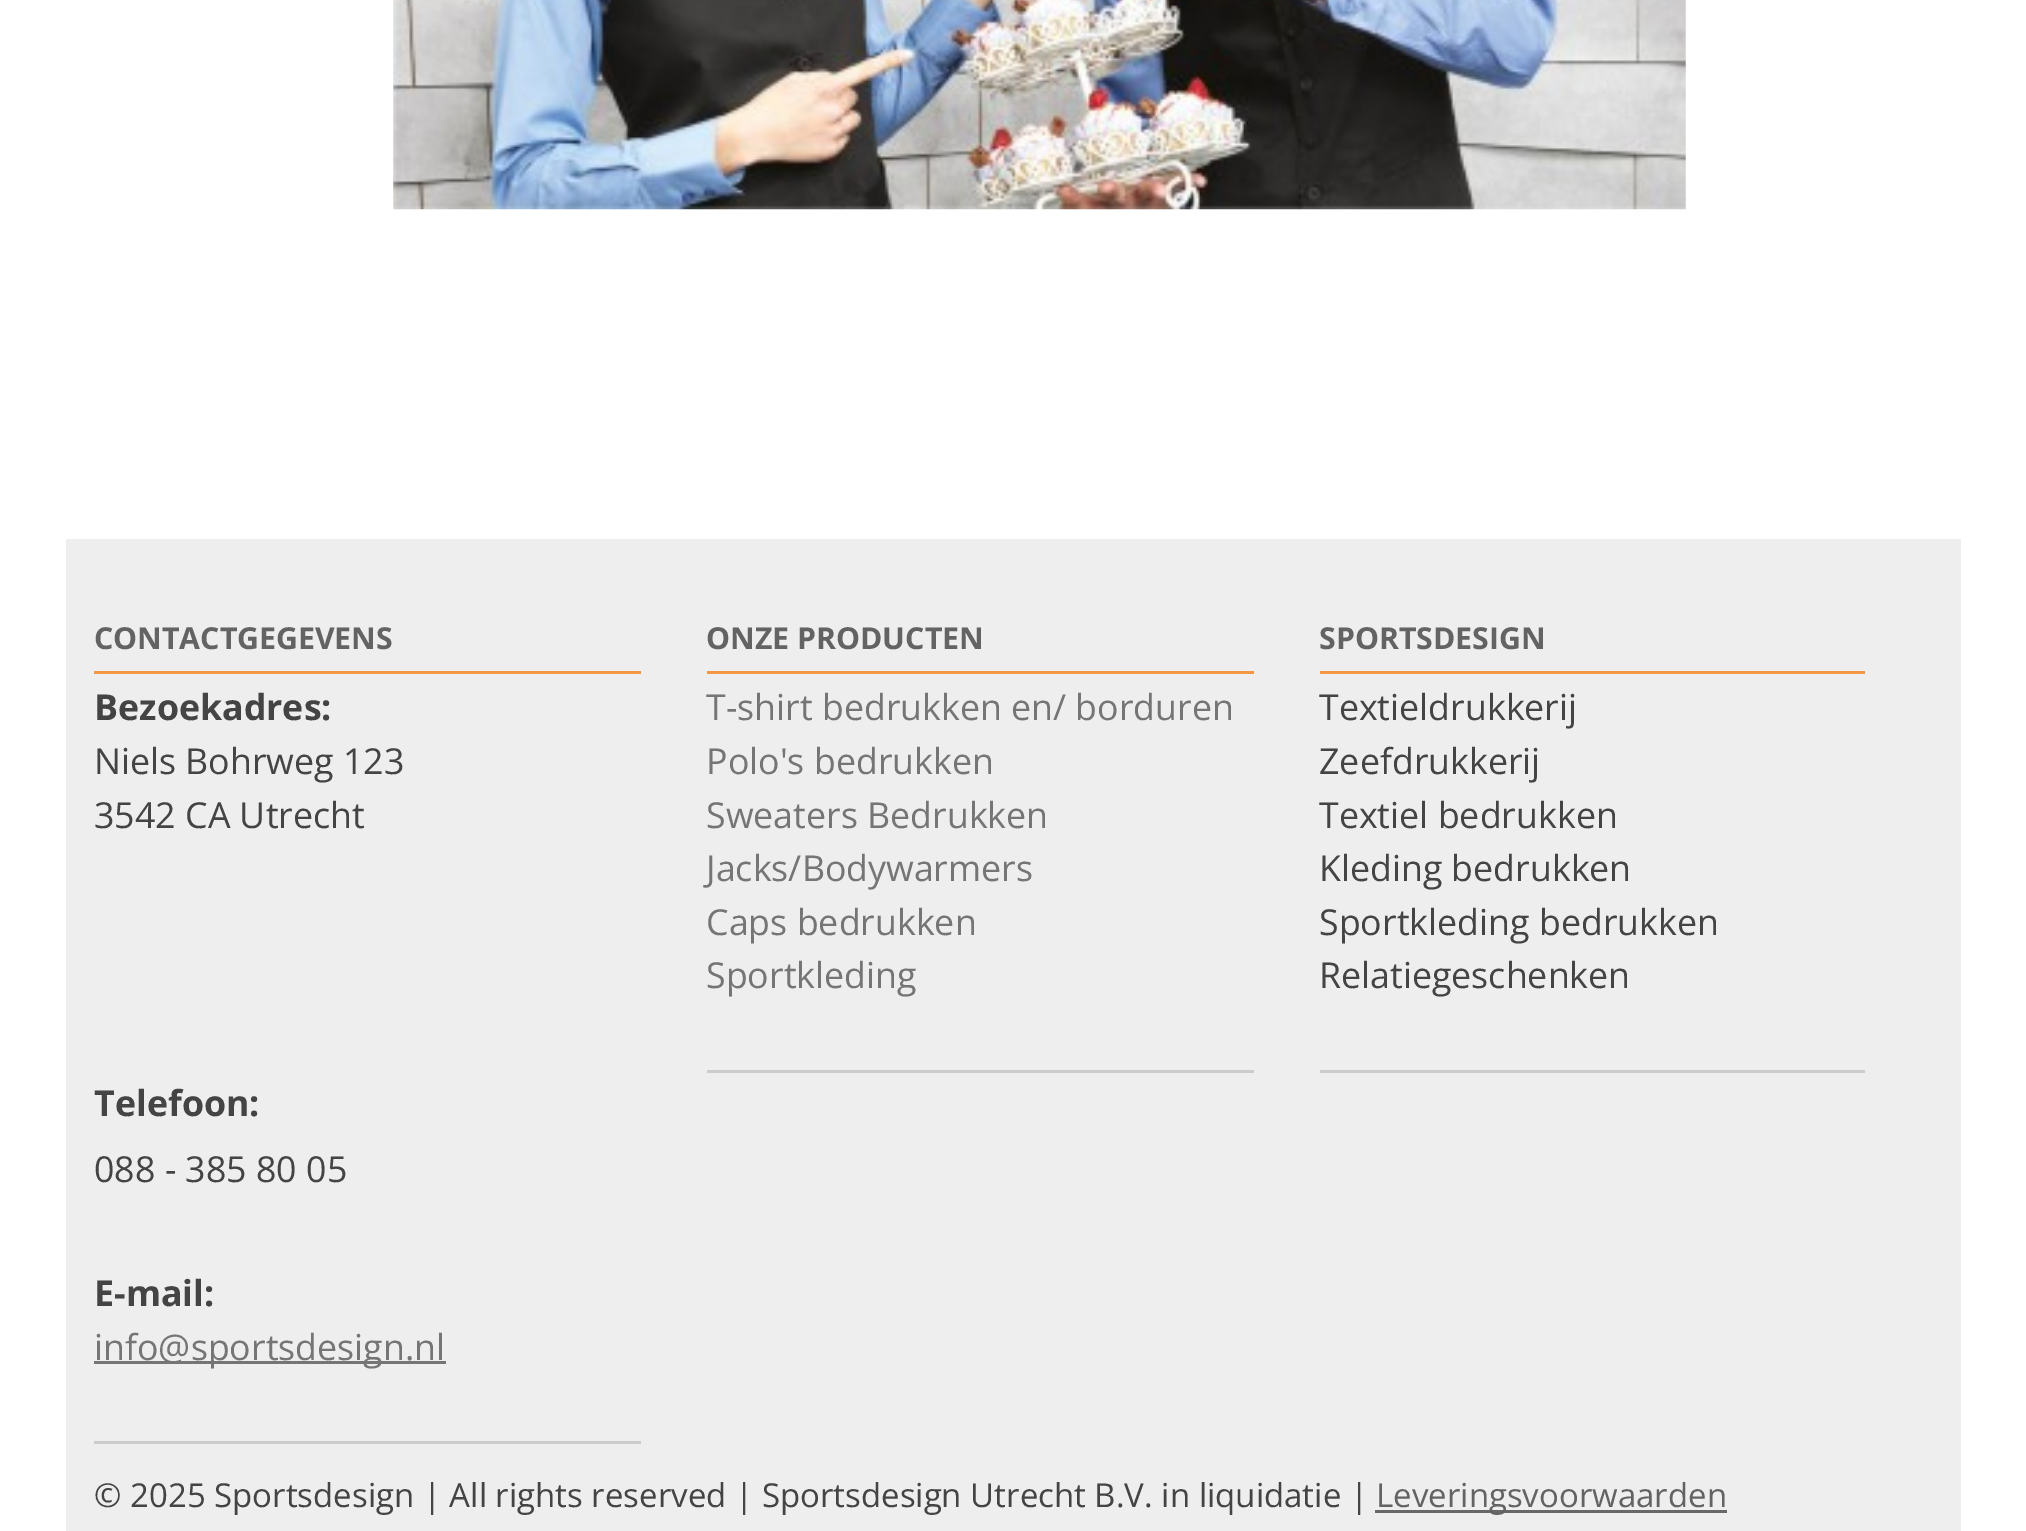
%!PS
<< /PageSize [2026 1531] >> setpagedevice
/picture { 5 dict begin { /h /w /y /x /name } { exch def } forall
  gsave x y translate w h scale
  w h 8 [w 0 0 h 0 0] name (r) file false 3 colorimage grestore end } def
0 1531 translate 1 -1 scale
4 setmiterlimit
1 setgray
0 0 2026 1531 rectfill
(img1.rgb) 393 0 1293 210 picture
0.933 setgray
66 539 1895 992 rectfill
0.8 setgray
94 1441 547 3 rectfill
0.945 0.592 0.275 setrgbcolor
94 671 547 3 rectfill
/OpenSans-Bold [30.25 0 0 -30.25 0 0] selectfont
0.388 setgray
94 649 moveto (CONTACTGEGEVENS) show
/OpenSans-Bold [35.75 0 0 -35.75 0 0] selectfont
0.267 setgray
94 720 moveto (Bezoekadres:) show
/OpenSans-Regular [35.75 0 0 -35.75 0 0] selectfont
94 774 moveto (Niels Bohrweg 123) show
94 828 moveto (3542 CA Utrecht) show
/OpenSans-Bold [35.75 0 0 -35.75 0 0] selectfont
94 1116 moveto (Telefoon:) show
/OpenSans-Regular [35.75 0 0 -35.75 0 0] selectfont
94 1182 moveto (088 - 385 80 05) show
/OpenSans-Bold [35.75 0 0 -35.75 0 0] selectfont
94 1306 moveto (E-mail:) show
0.459 setgray
94 1361 352 3 rectfill
/OpenSans-Regular [35.75 0 0 -35.75 0 0] selectfont
94 1360 moveto (info@sportsdesign.nl) show
0.8 setgray
707 1070 547 3 rectfill
0.945 0.592 0.275 setrgbcolor
707 671 547 3 rectfill
/OpenSans-Bold [30.25 0 0 -30.25 0 0] selectfont
0.388 setgray
706 649 moveto (ONZE PRODUCTEN) show
/OpenSans-Regular [35.75 0 0 -35.75 0 0] selectfont
0.459 setgray
706 720 moveto (T-shirt bedrukken en/ borduren) show
706 774 moveto (Polo's bedrukken) show
706 828 moveto (Sweaters Bedrukken) show
706 881 moveto (Jacks/Bodywarmers) show
706 935 moveto (Caps bedrukken) show
706 988 moveto (Sportkleding) show
0.8 setgray
1320 1070 545 3 rectfill
0.945 0.592 0.275 setrgbcolor
1320 671 545 3 rectfill
/OpenSans-Bold [30.25 0 0 -30.25 0 0] selectfont
0.388 setgray
1319 649 moveto (SPORTSDESIGN) show
/OpenSans-Regular [35.75 0 0 -35.75 0 0] selectfont
0.267 setgray
1319 720 moveto (Textieldrukkerij) show
1319 774 moveto (Zeefdrukkerij) show
1319 828 moveto (Textiel bedrukken) show
1319 881 moveto (Kleding bedrukken) show
1319 935 moveto (Sportkleding bedrukken) show
1319 988 moveto (Relatiegeschenken) show
/OpenSans-Regular [33 0 0 -33 0 0] selectfont
94 1507 moveto (© 2025 Sportsdesign | All rights reserved | Sportsdesign Utrecht B.V. in liquidatie |) show
0.408 setgray
1375 1510 352 3 rectfill
0.388 setgray
1376 1507 moveto (Leveringsvoorwaarden) show
showpage
